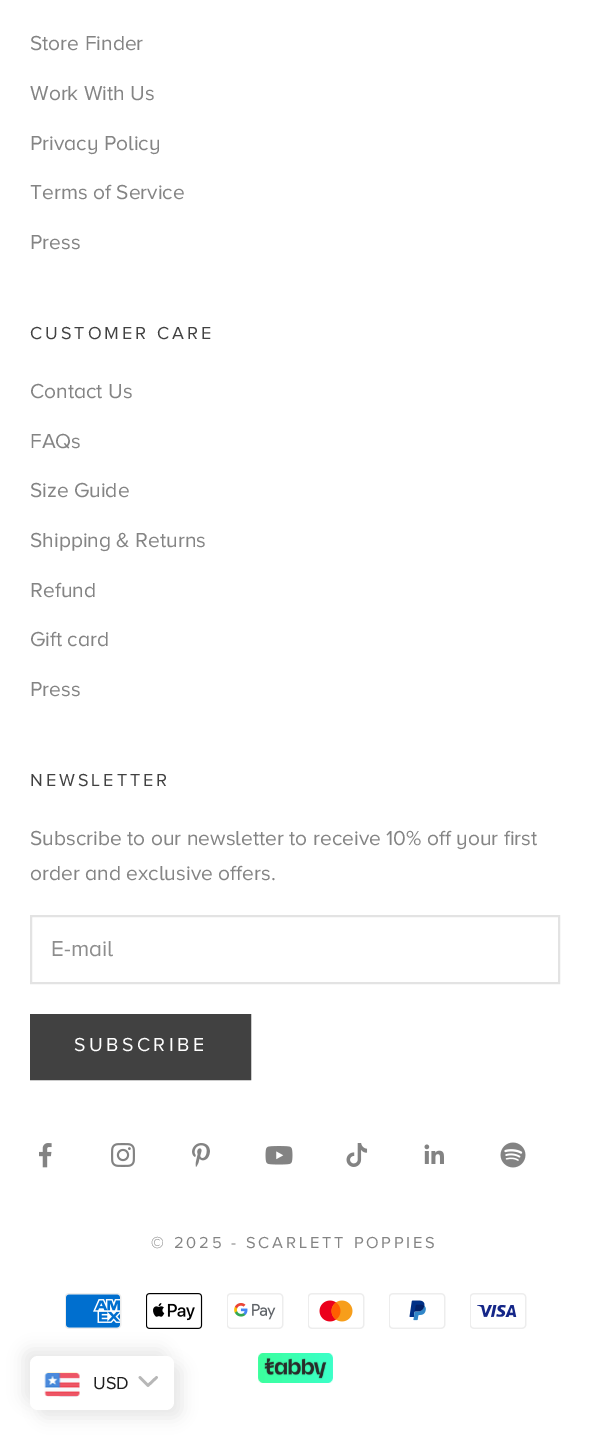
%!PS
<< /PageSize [589 1442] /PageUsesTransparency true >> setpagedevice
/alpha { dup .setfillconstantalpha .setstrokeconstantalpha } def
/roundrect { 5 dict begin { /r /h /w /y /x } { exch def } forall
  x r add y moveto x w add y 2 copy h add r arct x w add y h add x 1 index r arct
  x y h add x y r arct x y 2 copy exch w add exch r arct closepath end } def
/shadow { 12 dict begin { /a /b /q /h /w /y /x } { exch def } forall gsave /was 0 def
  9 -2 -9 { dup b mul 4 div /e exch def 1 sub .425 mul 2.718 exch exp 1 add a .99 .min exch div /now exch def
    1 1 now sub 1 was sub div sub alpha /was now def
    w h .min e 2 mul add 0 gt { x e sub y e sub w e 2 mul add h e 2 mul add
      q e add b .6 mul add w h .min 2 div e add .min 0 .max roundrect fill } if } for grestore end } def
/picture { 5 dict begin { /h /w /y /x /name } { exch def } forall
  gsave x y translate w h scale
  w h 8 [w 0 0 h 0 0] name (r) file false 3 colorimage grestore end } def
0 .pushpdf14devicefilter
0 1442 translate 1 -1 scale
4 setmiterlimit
1 setgray
0 0 589 1442 rectfill
/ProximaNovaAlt-Regular [21 0 0 -21 0 0] selectfont
0.518 setgray
30 50 moveto (Store Finder) show
30 100 moveto (Work With Us) show
30 150 moveto (Privacy Policy) show
30 199 moveto (Terms of Service) show
30 249 moveto (Press) show
/ProximaNovaAlt-Regular [18 0 0 -18 0 0] selectfont
0.255 setgray
30 339 moveto 3 0 (CUSTOMER CARE) ashow
/ProximaNovaAlt-Regular [21 0 0 -21 0 0] selectfont
0.518 setgray
30 398 moveto (Contact Us) show
30 448 moveto (FAQs) show
30 497 moveto (Size Guide) show
30 547 moveto (Shipping & Returns) show
30 597 moveto (Refund) show
30 646 moveto (Gift card) show
30 696 moveto (Press) show
/ProximaNovaAlt-Regular [18 0 0 -18 0 0] selectfont
0.255 setgray
30 786 moveto 3 0 (NEWSLETTER) ashow
/ProximaNovaAlt-Regular [21 0 0 -21 0 0] selectfont
0.518 setgray
30 845 moveto (Subscribe to our newsletter to receive 10% off your first) show
30 880 moveto (order and exclusive offers.) show
0.89 setgray
2 setlinewidth
31 916 528 67 rectstroke
/ProximaNovaAlt-Regular [22.5 0 0 -22.5 0 0] selectfont
0.553 setgray
51 956 moveto (E-mail) show
0.255 setgray
newpath 31 1015 moveto 250 1015 lineto 250 1079 lineto 31 1079 lineto closepath gsave fill grestore
stroke
/ProximaNovaAlt-Regular [19.5 0 0 -19.5 0 0] selectfont
1 setgray
74 1051 moveto 3.5 0 (SUBSCRIBE) ashow
(img1.rgb) 39 1143 13 25 picture
(img2.rgb) 111 1143 24 24 picture
(img3.rgb) 192 1143 18 24 picture
(img4.rgb) 265 1146 28 19 picture
(img5.rgb) 346 1143 22 24 picture
(img6.rgb) 424 1144 20 20 picture
(img7.rgb) 500 1142 26 26 picture
/ProximaNovaAlt-Regular [16.5 0 0 -16.5 0 0] selectfont
0.518 setgray
151 1248 moveto 2.8 0 (© 2025 - SCARLETT POPPIES) ashow
(img8.rgb) 65 1293 57 36 picture
(img9.rgb) 146 1293 57 36 picture
(img10.rgb) 227 1293 57 36 picture
(img11.rgb) 308 1293 57 36 picture
(img12.rgb) 389 1293 57 36 picture
(img13.rgb) 470 1293 57 36 picture
(img14.rgb) 258 1353 75 30 picture
0.91 setgray
23 1349 144 54 8 7.5 1 shadow
38 1364 144 54 8 7.5 1 shadow
1 setgray
30 1356 144 54 8 roundrect fill
(img15.rgb) 44 1372 36 25 picture
/ProximaNovaAlt-Regular [18 0 0 -18 0 0] selectfont
0.118 setgray
93 1389 moveto (USD) show
0.718 setgray
2.7 setlinewidth
1 setlinecap
1 setlinejoin
newpath 140 1377.5 moveto 148 1385.5 lineto 156.5 1377.5 lineto stroke
.poppdf14devicefilter showpage
